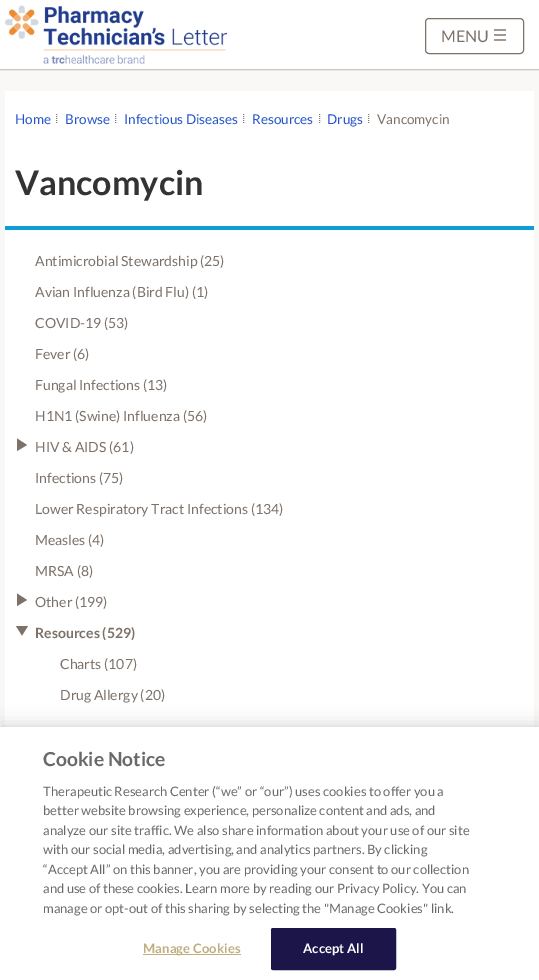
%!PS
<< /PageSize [539 980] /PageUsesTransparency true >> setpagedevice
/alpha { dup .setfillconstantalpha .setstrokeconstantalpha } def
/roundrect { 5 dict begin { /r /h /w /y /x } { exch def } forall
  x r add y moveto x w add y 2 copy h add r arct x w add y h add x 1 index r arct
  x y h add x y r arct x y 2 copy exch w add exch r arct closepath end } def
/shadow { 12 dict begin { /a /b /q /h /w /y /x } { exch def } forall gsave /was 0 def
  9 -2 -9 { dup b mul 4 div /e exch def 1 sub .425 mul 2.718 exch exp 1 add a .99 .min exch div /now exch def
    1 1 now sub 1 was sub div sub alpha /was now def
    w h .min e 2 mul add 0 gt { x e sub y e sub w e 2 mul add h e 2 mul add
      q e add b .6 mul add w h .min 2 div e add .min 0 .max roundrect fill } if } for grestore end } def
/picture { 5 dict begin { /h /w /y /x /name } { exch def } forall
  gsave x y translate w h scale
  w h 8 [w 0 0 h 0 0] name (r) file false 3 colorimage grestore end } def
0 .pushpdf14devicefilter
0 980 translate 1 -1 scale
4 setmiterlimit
0.98 0.973 0.969 setrgbcolor
0 0 539 980 rectfill
1 setgray
0 0 539 69 rectfill
0.902 setgray
0 70 539 1 rectfill
(img1.rgb) 5 5 222 59 picture
0.486 0.447 0.416 setrgbcolor
425.5 18.5 98 35 3.5 roundrect stroke
/Lato-Regular [16 0 0 -16 0 0] selectfont
441 42 moveto (MENU) show
(img2.rgb) 494 29 12 12 picture
0.8 0.78 0.765 setrgbcolor
0 69 539 1 rectfill
1 setgray
5 91 529 135 rectfill
0.051 0.616 0.859 setrgbcolor
5 226 529 4 rectfill
/Lato-Regular [13.5 0 0 -13.5 0 0] selectfont
0.141 0.333 0.788 setrgbcolor
15 124 moveto (Home) show
0.467 setgray
[1 1] 0 setdash
newpath 56.5 114 moveto 56.5 124 lineto stroke
0.141 0.333 0.788 setrgbcolor
65 124 moveto (Browse) show
0.467 setgray
newpath 115.5 114 moveto 115.5 124 lineto stroke
0.141 0.333 0.788 setrgbcolor
124 124 moveto (Infectious Diseases) show
0.467 setgray
newpath 243.5 114 moveto 243.5 124 lineto stroke
0.141 0.333 0.788 setrgbcolor
252 124 moveto (Resources) show
0.467 setgray
newpath 319.5 114 moveto 319.5 124 lineto stroke
0.141 0.333 0.788 setrgbcolor
327 124 moveto (Drugs) show
0.467 setgray
newpath 368.5 114 moveto 368.5 124 lineto stroke
0.486 0.447 0.416 setrgbcolor
377 124 moveto (Vancomycin) show
/Lato-Bold [34 0 0 -34 0 0] selectfont
0.2 setgray
15 195 moveto (Vancomycin) show
1 setgray
5 230 529 497 rectfill
/Lato-Regular [14 0 0 -14 0 0] selectfont
0.486 0.447 0.416 setrgbcolor
35 266 moveto (Antimicrobial Stewardship \(25\)) show
35 297 moveto (Avian Influenza \(Bird Flu\) \(1\)) show
35 328 moveto (COVID-19 \(53\)) show
35 359 moveto (Fever \(6\)) show
35 390 moveto (Fungal Infections \(13\)) show
35 421 moveto (H1N1 \(Swine\) Influenza \(56\)) show
newpath 17 451 moveto 17 438.5 lineto 27 445 lineto closepath fill
35 452 moveto (HIV & AIDS \(61\)) show
35 483 moveto (Infections \(75\)) show
35 514 moveto (Lower Respiratory Tract Infections \(134\)) show
35 545 moveto (Measles \(4\)) show
35 576 moveto (MRSA \(8\)) show
newpath 17 606 moveto 17 593.5 lineto 27 600 lineto closepath fill
35 607 moveto (Other \(199\)) show
newpath 16 626 moveto 28 626 lineto 22 635.5 lineto closepath fill
/Lato-Bold [14 0 0 -14 0 0] selectfont
35 638 moveto (Resources \(529\)) show
/Lato-Regular [14 0 0 -14 0 0] selectfont
60 669 moveto (Charts \(107\)) show
60 700 moveto (Drug Allergy \(20\)) show
0 setgray
0 727 539 253 0 9 0.2 shadow
1 setgray
0 727 539 253 rectfill
/Lato-Bold [19.25 0 0 -19.25 0 0] selectfont
0.412 setgray
43 766 moveto (Cookie Notice) show
/Lato-Regular [13 0 0 -13 0 0] selectfont
43 796 moveto (Therapeutic Research Center \(“we” or “our”\) uses cookies to offer you a) show
43 815 moveto (better website browsing experience, personalize content and ads, and) show
43 835 moveto (analyze our site traffic. We also share information about your use of our site) show
43 854 moveto (with our social media, advertising, and analytics partners. By clicking) show
43 874 moveto (“Accept All” on this banner, you are providing your consent to our collection) show
43 893 moveto (and use of these cookies. Learn more by reading our Privacy Policy. You can) show
43 913 moveto (manage or opt-out of this sharing by selecting the "Manage Cookies" link.) show
0.757 0.678 0.502 setrgbcolor
143 954 98 1 rectfill
/Lato-Bold [13 0 0 -13 0 0] selectfont
143 953 moveto 0.1 0 (Manage Cookies) ashow
0.106 0.082 0.286 setrgbcolor
271.5 928.5 124 41 1.5 roundrect gsave fill grestore
[] 0 setdash
stroke
1 setgray
303 953 moveto 0.1 0 (Accept All) ashow
.poppdf14devicefilter showpage
